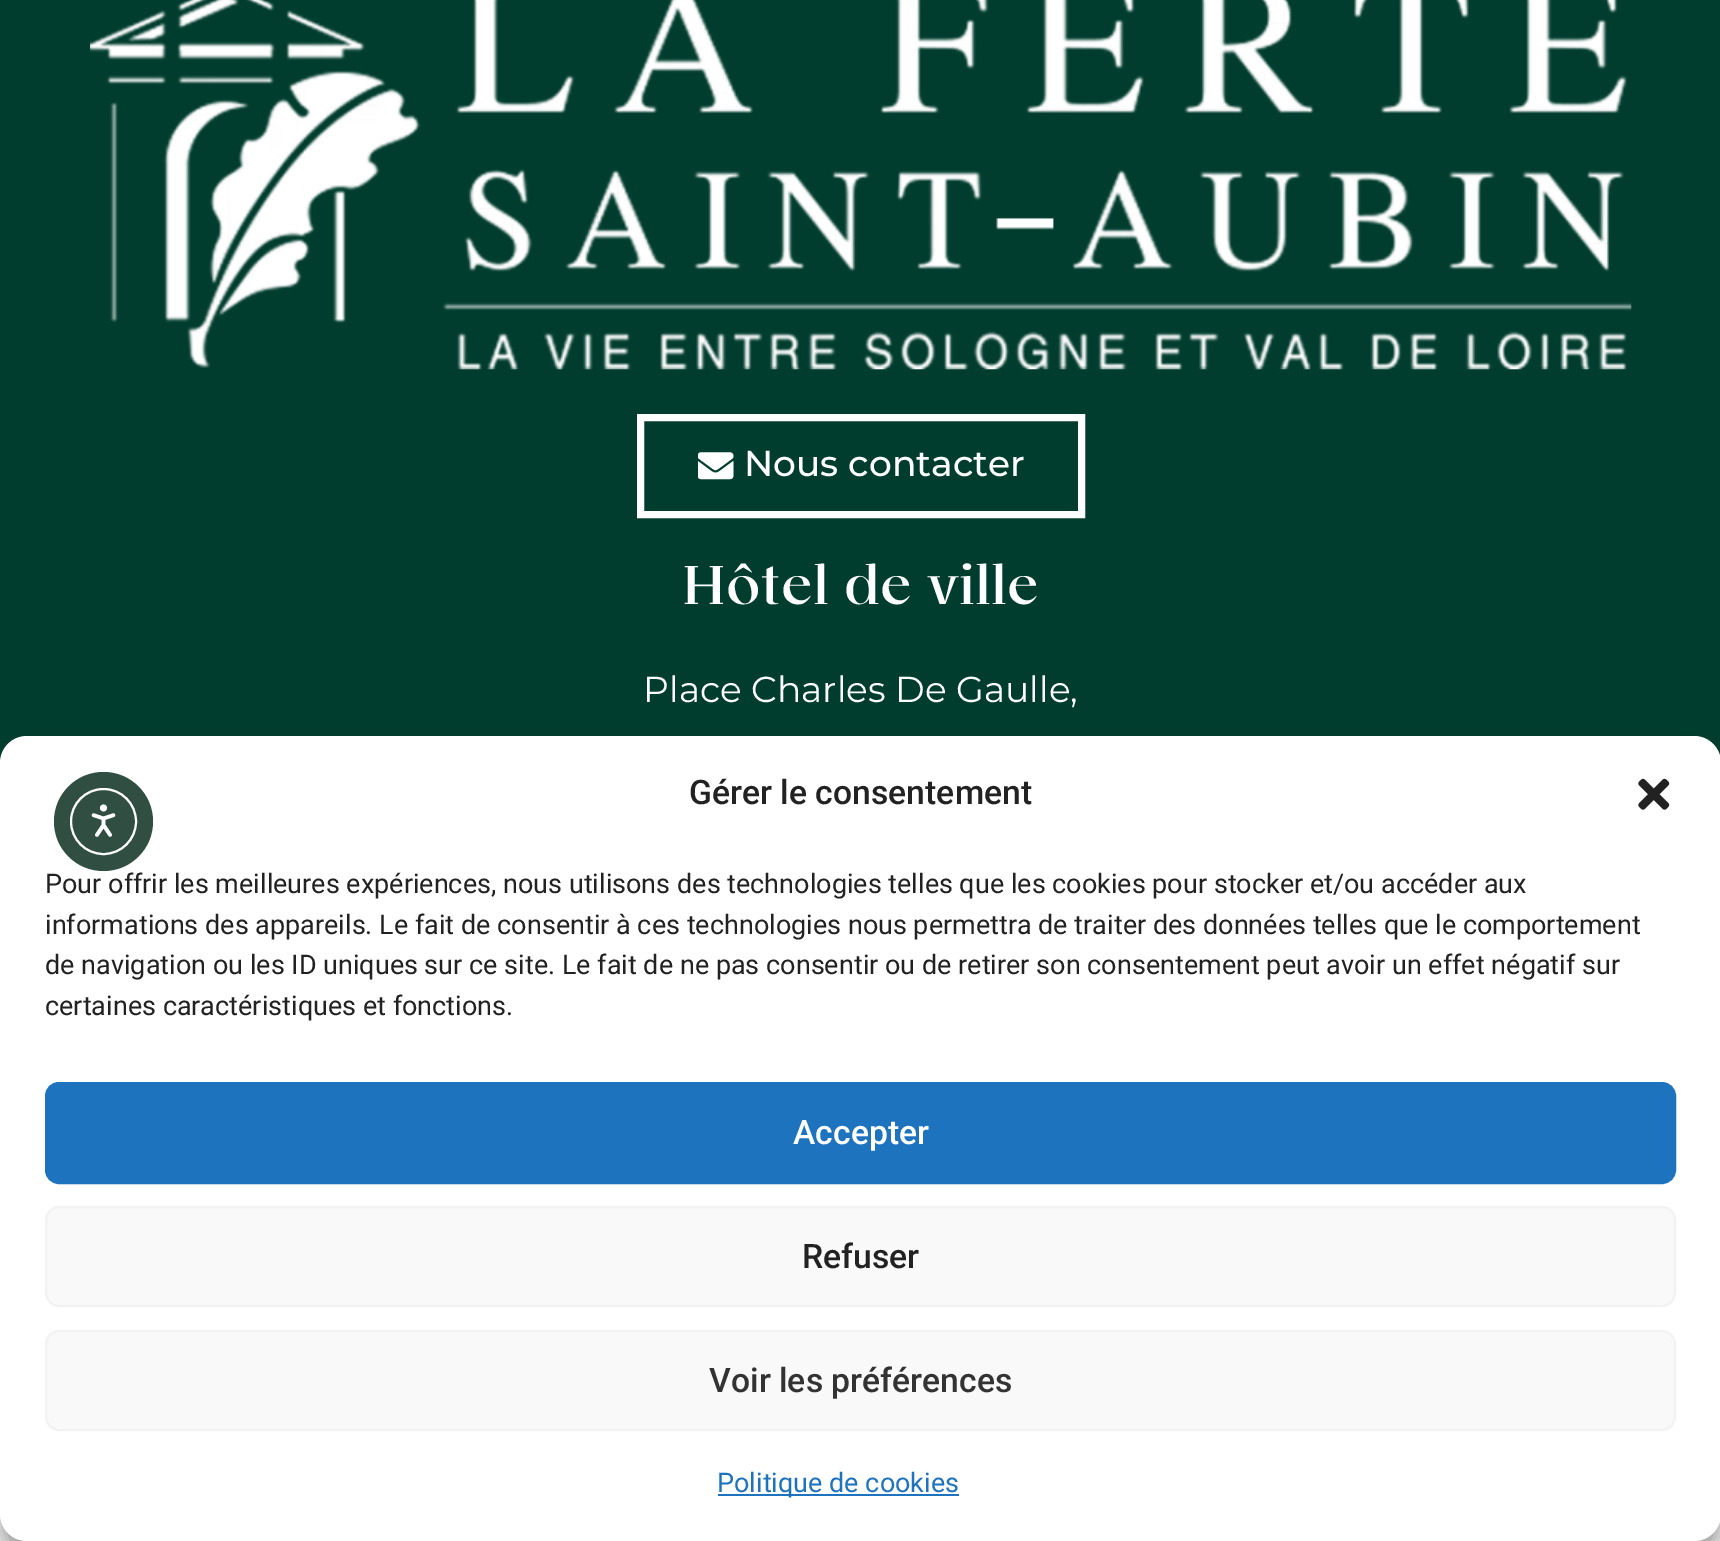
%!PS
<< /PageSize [1720 1541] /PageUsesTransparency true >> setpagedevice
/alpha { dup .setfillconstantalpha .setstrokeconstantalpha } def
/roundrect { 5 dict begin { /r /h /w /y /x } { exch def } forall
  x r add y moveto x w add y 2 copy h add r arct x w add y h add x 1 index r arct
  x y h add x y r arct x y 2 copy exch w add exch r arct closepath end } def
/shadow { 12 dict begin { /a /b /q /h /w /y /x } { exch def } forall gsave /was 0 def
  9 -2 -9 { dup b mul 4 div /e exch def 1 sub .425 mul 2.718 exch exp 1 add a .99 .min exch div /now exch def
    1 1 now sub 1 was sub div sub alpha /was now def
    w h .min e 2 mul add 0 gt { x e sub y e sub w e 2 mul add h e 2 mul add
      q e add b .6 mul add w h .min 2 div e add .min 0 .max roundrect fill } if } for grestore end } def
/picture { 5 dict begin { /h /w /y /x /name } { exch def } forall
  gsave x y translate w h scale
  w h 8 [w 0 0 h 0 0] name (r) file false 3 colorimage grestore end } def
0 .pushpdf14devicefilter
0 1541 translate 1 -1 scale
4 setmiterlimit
1 setgray
0 0 1720 1541 rectfill
0.004 0.239 0.18 setrgbcolor
0 0 1720 763 rectfill
(img1.rgb) 90 0 1542 370 picture
1 setgray
7 setlinewidth
640.5 417.5 441 97 rectstroke
(img2.rgb) 698 452 36 28 picture
/Montserrat-Medium [36 0 0 -36 0 0] selectfont
744 476 moveto (Nous contacter) show
/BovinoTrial-Regular [57.5 0 0 -57.5 0 0] selectfont
682 604 moveto (Hôtel de ville) show
/Montserrat-Regular [36 0 0 -36 0 0] selectfont
643 702 moveto (Place Charles De Gaulle,) show
0 setgray
0 749 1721 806 27 7 0.23 shadow
0 758 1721 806 27 22.5 0.19 shadow
1 setgray
0 736 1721 805 27 roundrect fill
0.188 0.306 0.259 setrgbcolor
newpath 103.5 821.5 49.5 0 360 arc closepath fill
1 setgray
2 setlinewidth
newpath 103.5 821.5 32.5 0 360 arc closepath stroke
(img3.rgb) 91 804 25 33 picture
/Roboto-Medium [33.75 0 0 -33.75 0 0] selectfont
0.133 setgray
689 804 moveto (Gérer le consentement) show
(img4.rgb) 1638 778 32 32 picture
/Roboto-Regular [27 0 0 -27 0 0] selectfont
45 893 moveto (Pour offrir les meilleures expériences, nous utilisons des technologies telles que les cookies pour stocker et/ou accéder aux) show
45 934 moveto (informations des appareils. Le fait de consentir à ces technologies nous permettra de traiter des données telles que le comportement) show
45 974 moveto (de navigation ou les ID uniques sur ce site. Le fait de ne pas consentir ou de retirer son consentement peut avoir un effet négatif sur) show
45 1015 moveto (certaines caractéristiques et fonctions.) show
0.118 0.451 0.745 setrgbcolor
46 1083 1629 100 13 roundrect gsave fill grestore
stroke
/Roboto-Medium [33.75 0 0 -33.75 0 0] selectfont
1 setgray
793 1144 moveto (Accepter) show
0.976 setgray
46 1207 1629 99 13 roundrect gsave fill grestore
0.949 setgray
stroke
0.133 setgray
802 1268 moveto (Refuser) show
0.976 setgray
46 1331 1629 99 13 roundrect gsave fill grestore
0.949 setgray
stroke
0.2 setgray
709 1392 moveto (Voir les préférences) show
0.118 0.451 0.745 setrgbcolor
718 1494 241 2 rectfill
/Roboto-Regular [27 0 0 -27 0 0] selectfont
717 1492 moveto (Politique de cookies) show
.poppdf14devicefilter showpage
